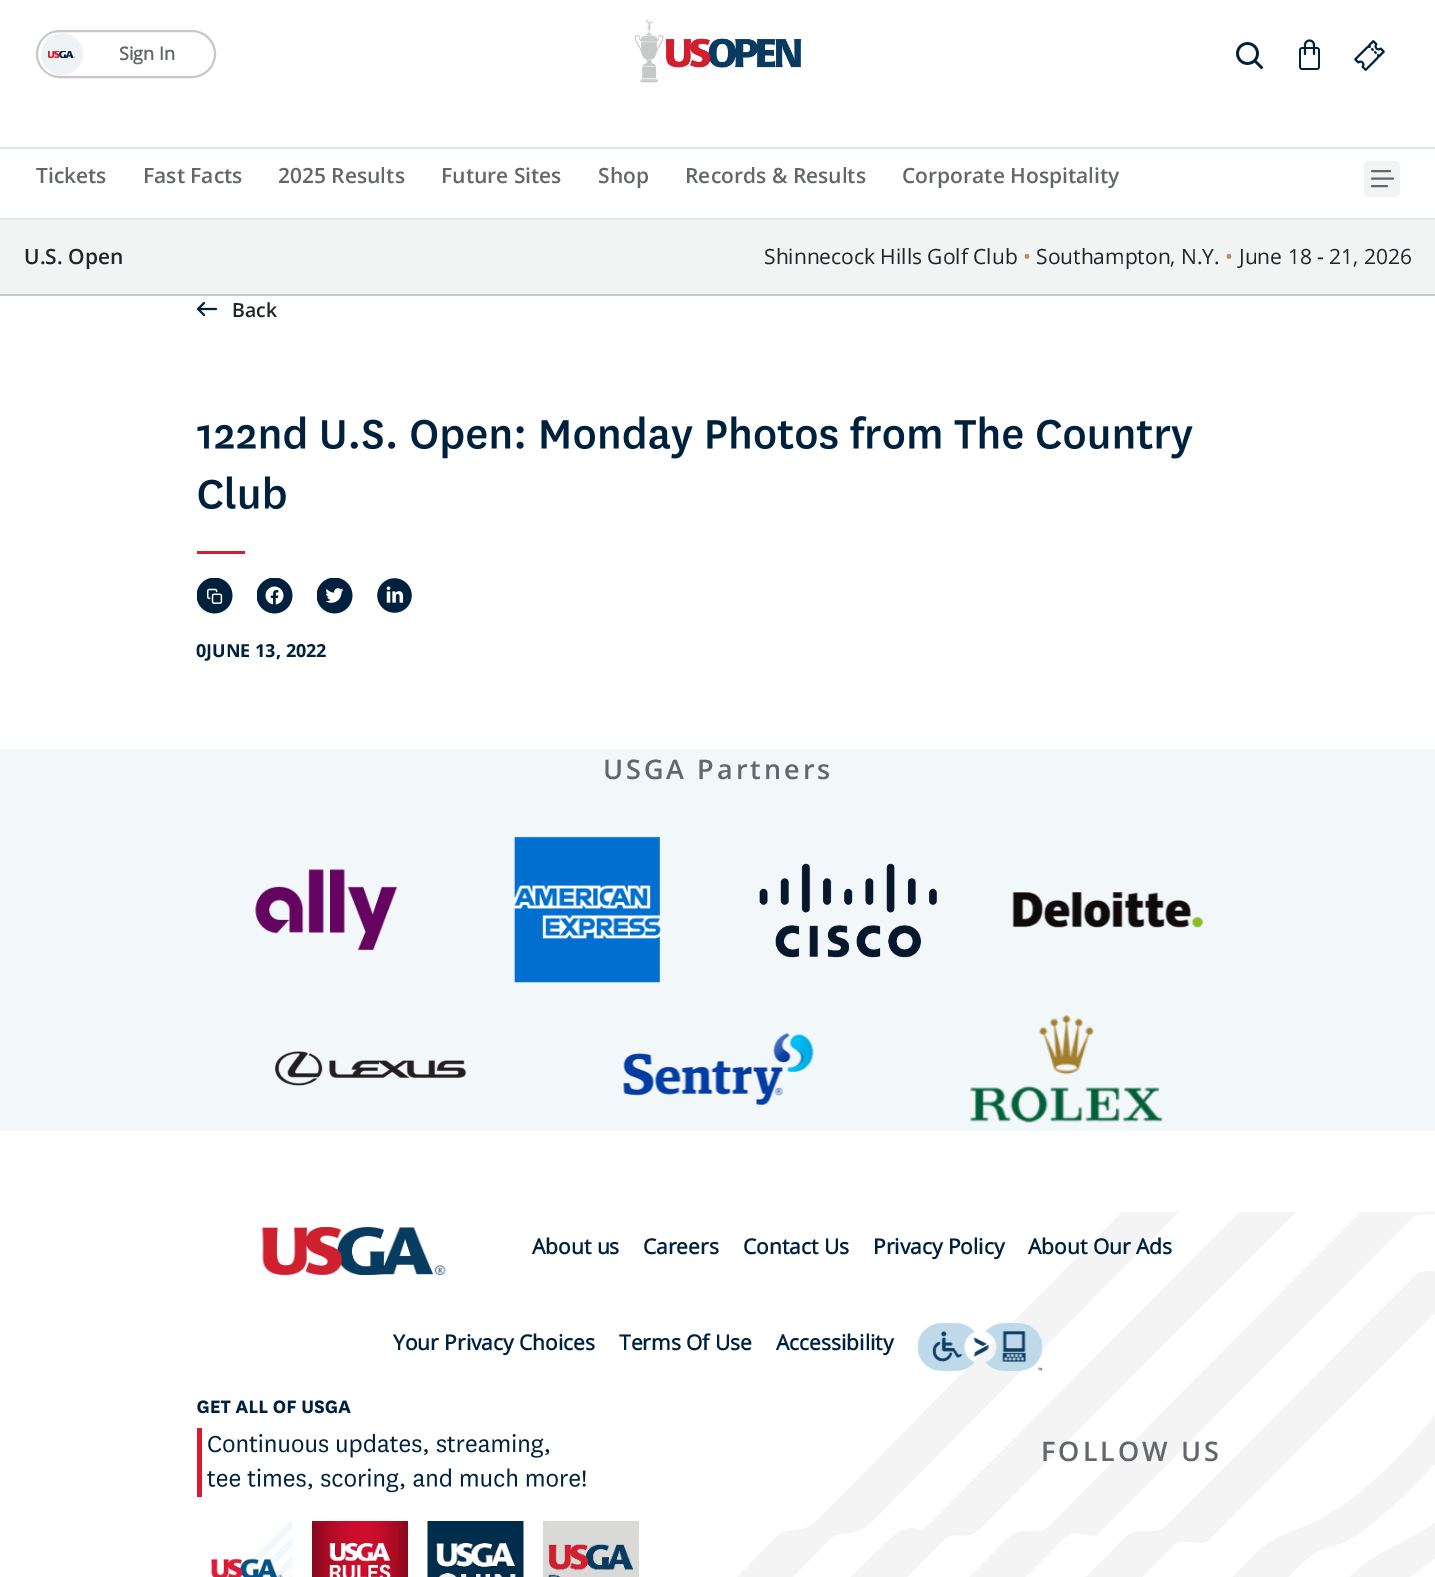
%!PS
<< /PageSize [1435 1577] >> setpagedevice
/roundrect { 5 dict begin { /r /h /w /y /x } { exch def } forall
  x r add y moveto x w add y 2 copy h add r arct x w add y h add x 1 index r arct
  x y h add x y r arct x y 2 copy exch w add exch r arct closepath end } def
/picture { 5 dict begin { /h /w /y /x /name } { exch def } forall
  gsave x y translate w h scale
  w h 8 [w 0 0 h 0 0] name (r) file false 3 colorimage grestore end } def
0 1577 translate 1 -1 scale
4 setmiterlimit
1 setgray
0 0 1435 1577 rectfill
0.78 0.788 0.784 setrgbcolor
0 294 1435 2 rectfill
2 setlinewidth
37 31 178 46 23 roundrect stroke
(img1.rgb) 41 33 42 42 picture
/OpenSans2-Bold [18 0 0 -18 0 0] selectfont
0.388 0.4 0.416 setrgbcolor
119 60 moveto (Sign In) show
(img2.rgb) 634 19 168 64 picture
0.871 0.902 0.922 setrgbcolor
0 147 1435 2 rectfill
0 218 1435 2 rectfill
(img3.rgb) 1236 42 27 27 picture
(img4.rgb) 1299 39 21 31 picture
(img5.rgb) 1354 40 31 31 picture
/OpenSans-SemiBold [21 0 0 -21 0 0] selectfont
0.388 0.4 0.416 setrgbcolor
36 183 moveto (Tickets) show
143 183 moveto (Fast Facts) show
278 183 moveto (2025 Results) show
441 183 moveto (Future Sites) show
598 183 moveto (Shop) show
685 183 moveto (Records & Results) show
902 183 moveto (Corporate Hospitality) show
0.949 0.953 0.953 setrgbcolor
1364 161 36 36 6 roundrect fill
0.388 0.4 0.416 setrgbcolor
1.9 setlinewidth
1 setlinecap
newpath 1372 171 moveto 1390 171 lineto 1372 186 moveto 1387 186 lineto 1372 178.5 moveto 1393 178.5 lineto stroke
0.949 0.953 0.953 setrgbcolor
0 220 1435 74 rectfill
0.129 0.145 0.161 setrgbcolor
24 264 moveto (U.S. Open) show
/OpenSans-Regular [21 0 0 -21 0 0] selectfont
764 264 moveto (Shinnecock Hills Golf Club) show
0.718 0.569 0.341 setrgbcolor
1023 264 moveto (•) show
0.129 0.145 0.161 setrgbcolor
1036 264 moveto (Southampton, N.Y.) show
0.718 0.569 0.341 setrgbcolor
1225 264 moveto (•) show
0.129 0.145 0.161 setrgbcolor
1239 264 moveto (June 18 - 21, 2026) show
(img6.rgb) 197 302 21 15 picture
/OpenSans-SemiBold [19.5 0 0 -19.5 0 0] selectfont
232 317 moveto (Back) show
(img7.rgb) 197 416 996 43 picture
(img8.rgb) 198 476 88 34 picture
0.855 0.102 0.192 setrgbcolor
197 551 48 3 rectfill
(img9.rgb) 197 578 36 36 picture
(img10.rgb) 257 578 36 36 picture
(img11.rgb) 317 578 36 36 picture
(img12.rgb) 377 578 35 35 picture
/OpenSans-Bold [18 0 0 -18 0 0] selectfont
0 0.129 0.239 setrgbcolor
196 657 moveto (0JUNE 13, 2022) show
0.949 0.969 0.98 setrgbcolor
0 749 1435 382 rectfill
/OpenSans-SemiBold [27 0 0 -27 0 0] selectfont
0.388 0.4 0.416 setrgbcolor
603 779 moveto 3 0 (USGA Partners) ashow
(img13.rgb) 255 869 143 82 picture
(img14.rgb) 513 836 148 147 picture
(img15.rgb) 759 863 178 95 picture
(img16.rgb) 1012 892 192 36 picture
(img17.rgb) 274 1051 193 35 picture
(img18.rgb) 623 1033 191 72 picture
(img19.rgb) 969 1014 194 109 picture
(img20.rgb) 737 1212 698 365 picture
(img21.rgb) 262 1227 184 48 picture
/OpenSans2-Bold [21 0 0 -21 0 0] selectfont
0 0.129 0.239 setrgbcolor
532 1254 moveto (About us) show
643 1254 moveto (Careers) show
743 1254 moveto (Contact Us) show
873 1254 moveto (Privacy Policy) show
1028 1254 moveto (About Our Ads) show
393 1350 moveto (Your Privacy Choices) show
619 1350 moveto (Terms Of Use) show
776 1350 moveto (Accessibility) show
(img22.rgb) 918 1323 125 48 picture
(img23.rgb) 197 1400 154 14 picture
0.855 0.102 0.192 setrgbcolor
197 1428 5 69 rectfill
(img24.rgb) 208 1433 342 25 picture
(img25.rgb) 207 1468 379 25 picture
(img26.rgb) 211 1521 82 56 picture
(img27.rgb) 312 1521 96 56 picture
(img28.rgb) 427 1521 97 56 picture
(img29.rgb) 543 1521 96 56 picture
/OpenSans-SemiBold [27 0 0 -27 0 0] selectfont
0.388 0.4 0.416 setrgbcolor
1041 1461 moveto 3 0 (FOLLOW US) ashow
showpage
